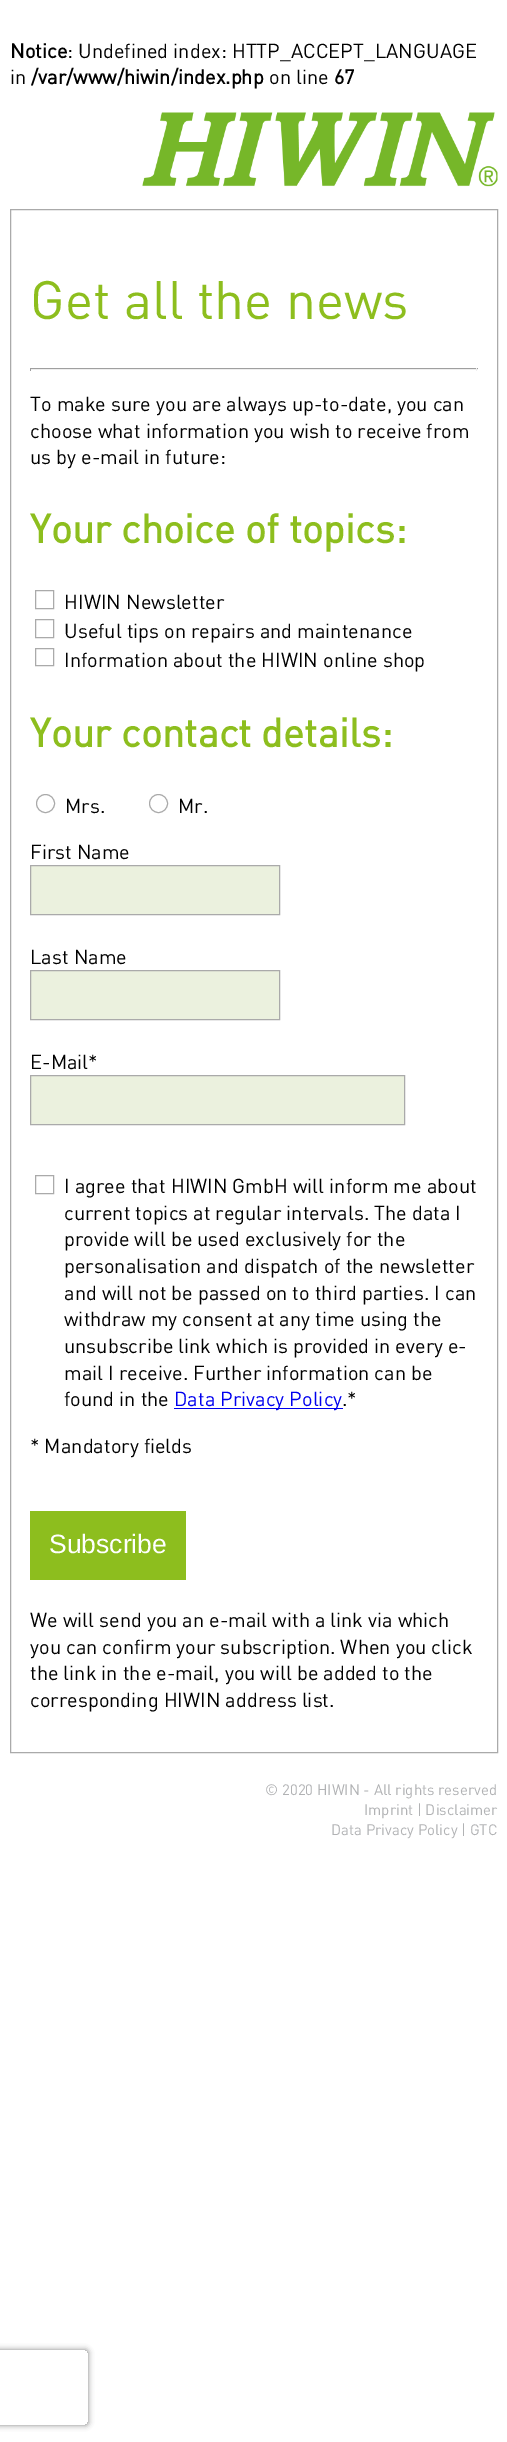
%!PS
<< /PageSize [507 2442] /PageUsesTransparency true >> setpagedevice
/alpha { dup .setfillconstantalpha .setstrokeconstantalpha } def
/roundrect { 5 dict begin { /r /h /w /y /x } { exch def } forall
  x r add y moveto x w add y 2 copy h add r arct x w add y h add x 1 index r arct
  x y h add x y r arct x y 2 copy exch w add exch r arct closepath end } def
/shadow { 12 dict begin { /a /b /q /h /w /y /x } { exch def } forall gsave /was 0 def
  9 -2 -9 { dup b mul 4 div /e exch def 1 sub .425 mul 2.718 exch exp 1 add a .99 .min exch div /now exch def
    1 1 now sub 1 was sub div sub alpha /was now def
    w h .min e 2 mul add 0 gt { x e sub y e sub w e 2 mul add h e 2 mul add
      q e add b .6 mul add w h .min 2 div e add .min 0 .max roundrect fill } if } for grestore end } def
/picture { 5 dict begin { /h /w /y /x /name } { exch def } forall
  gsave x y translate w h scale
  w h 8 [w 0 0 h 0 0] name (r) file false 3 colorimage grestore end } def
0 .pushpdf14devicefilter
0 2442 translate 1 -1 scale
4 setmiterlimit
1 setgray
0 0 507 2442 rectfill
/DIN-Bold [20 0 0 -20 0 0] selectfont
0 setgray
10 58 moveto (Notice) show
/DIN-Regular [20 0 0 -20 0 0] selectfont
67 58 moveto (: Undefined index: HTTP_ACCEPT_LANGUAGE) show
10 84 moveto (in) show
/DIN-Bold [20 0 0 -20 0 0] selectfont
31 84 moveto (/var/www/hiwin/index.php) show
/DIN-Regular [20 0 0 -20 0 0] selectfont
269 84 moveto (on line) show
/DIN-Bold [20 0 0 -20 0 0] selectfont
334 84 moveto (67) show
(img1.rgb) 142 112 356 75 picture
0.667 setgray
10.5 209.5 487 1543 rectstroke
/DIN-Regular [53.25 0 0 -53.25 0 0] selectfont
0.553 0.745 0.118 setrgbcolor
30 319 moveto (Get all the news) show
0.624 setgray
30 368 448 1 rectfill
0.933 setgray
476 368 1 3 rectfill
30 369 448 1 rectfill
0.624 setgray
30 368 1 3 rectfill
/DIN-Regular [20 0 0 -20 0 0] selectfont
0 setgray
30 411 moveto (To make sure you are always up-to-date, you can) show
30 438 moveto (choose what information you wish to receive from) show
30 464 moveto (us by e-mail in future:) show
/DIN-Bold [40 0 0 -40 0 0] selectfont
0.553 0.745 0.118 setrgbcolor
30 543 moveto (Your choice of topics:) show
0.667 setgray
35.5 590.5 18 18 rectstroke
/DIN-Regular [20 0 0 -20 0 0] selectfont
0 setgray
64 609 moveto (HIWIN Newsletter) show
0.667 setgray
35.5 619.5 18 18 rectstroke
0 setgray
64 638 moveto (Useful tips on repairs and maintenance) show
0.667 setgray
35.5 648.5 18 17 rectstroke
0 setgray
64 667 moveto (Information about the HIWIN online shop) show
/DIN-Bold [40 0 0 -40 0 0] selectfont
0.553 0.745 0.118 setrgbcolor
30 747 moveto (Your contact details:) show
0.667 setgray
newpath 45.5 803.5 9 0 360 arc closepath stroke
/DIN-Regular [20 0 0 -20 0 0] selectfont
0 setgray
65 813 moveto (Mrs.) show
0.667 setgray
newpath 158.5 803.5 9 0 360 arc closepath stroke
0 setgray
178 813 moveto (Mr.) show
30 859 moveto (First Name) show
0.922 0.945 0.871 setrgbcolor
newpath 30.5 865.5 moveto 279.5 865.5 lineto 279.5 914.5 lineto 30.5 914.5 lineto closepath gsave fill grestore
0.667 setgray
stroke
0 setgray
30 964 moveto (Last Name) show
0.922 0.945 0.871 setrgbcolor
newpath 30.5 970.5 moveto 279.5 970.5 lineto 279.5 1019.5 lineto 30.5 1019.5 lineto closepath gsave fill grestore
0.667 setgray
stroke
0 setgray
30 1069 moveto (E-Mail*) show
0.922 0.945 0.871 setrgbcolor
newpath 30.5 1075.5 moveto 404.5 1075.5 lineto 404.5 1124.5 lineto 30.5 1124.5 lineto closepath gsave fill grestore
0.667 setgray
stroke
35.5 1175.5 18 18 rectstroke
0 setgray
64 1193 moveto (I agree that HIWIN GmbH will inform me about) show
64 1220 moveto (current topics at regular intervals. The data I) show
64 1246 moveto (provide will be used exclusively for the) show
64 1273 moveto (personalisation and dispatch of the newsletter) show
64 1300 moveto (and will not be passed on to third parties. I can) show
64 1326 moveto (withdraw my consent at any time using the) show
64 1353 moveto (unsubscribe link which is provided in every e-) show
64 1380 moveto (mail I receive. Further information can be) show
64 1406 moveto (found in the) show
0 0 0.933 setrgbcolor
174 1408 169 1 rectfill
174 1406 moveto (Data Privacy Policy) show
0 setgray
342 1406 moveto (.*) show
30 1453 moveto (* Mandatory fields) show
0.553 0.745 0.118 setrgbcolor
30 1511 156 69 rectfill
/LiberationSans-Regular [26.5 0 0 -26.5 0 0] selectfont
1 setgray
49 1553 moveto (Subscribe) show
/DIN-Regular [20 0 0 -20 0 0] selectfont
0 setgray
30 1627 moveto (We will send you an e-mail with a link via which) show
30 1654 moveto (you can confirm your subscription. When you click) show
30 1680 moveto (the link in the e-mail, you will be added to the) show
30 1707 moveto (corresponding HIWIN address list.) show
gsave
newpath 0 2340 moveto 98 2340 lineto 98 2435 lineto 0 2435 lineto closepath -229.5 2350 moveto 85.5 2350 lineto 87 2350 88 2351 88 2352.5 curveto 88 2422.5 lineto 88 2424 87 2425 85.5 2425 curveto -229.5 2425 lineto -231 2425 -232 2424 -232 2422.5 curveto -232 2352.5 lineto -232 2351 -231 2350 -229.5 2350 curveto closepath eoclip newpath
0.502 setgray
-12 2350 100 75 2.5 3 1 shadow
grestore
/DIN-Regular [15 0 0 -15 0 0] selectfont
0.694 0.698 0.706 setrgbcolor
265 1795 moveto (© 2020 HIWIN - All rights reserved) show
364 1815 moveto (Imprint | Disclaimer) show
331 1835 moveto (Data Privacy Policy | GTC) show
.poppdf14devicefilter showpage
